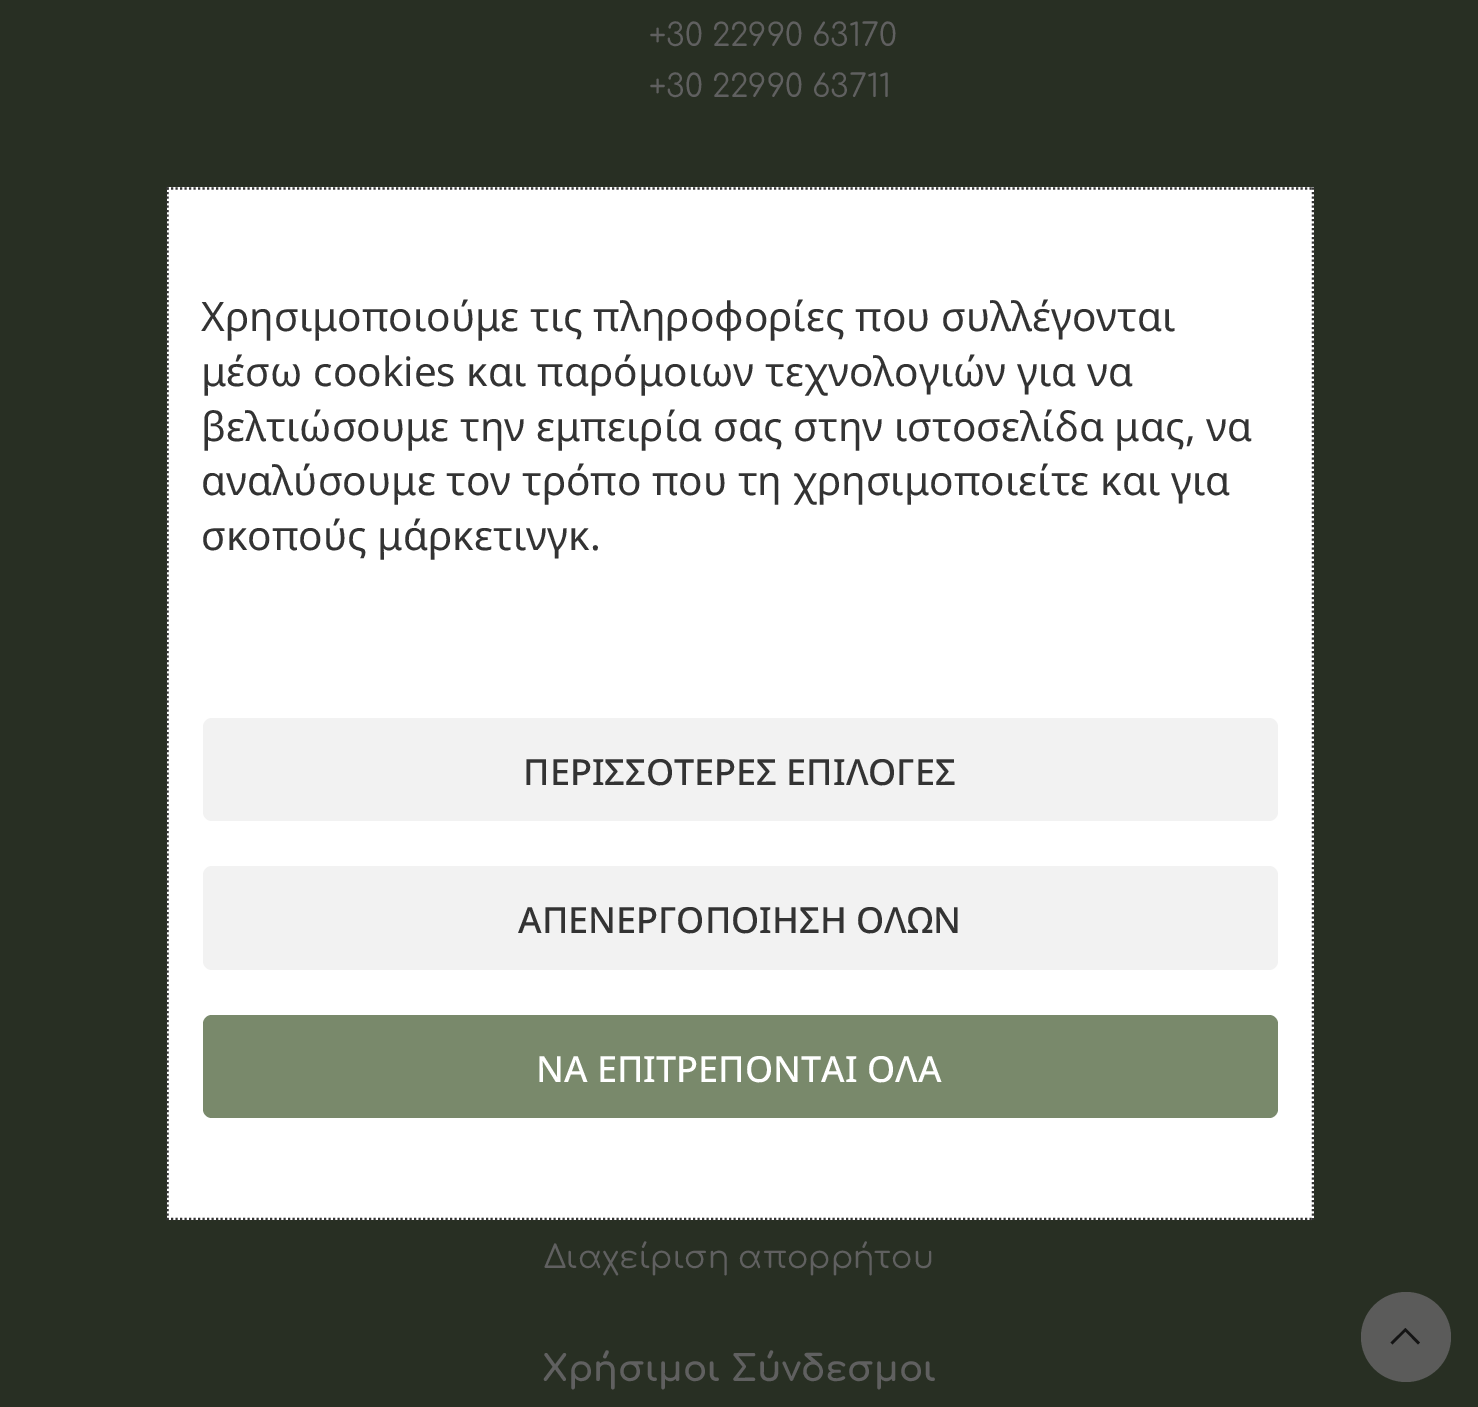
%!PS
<< /PageSize [1478 1407] /PageUsesTransparency true >> setpagedevice
/alpha { dup .setfillconstantalpha .setstrokeconstantalpha } def
/roundrect { 5 dict begin { /r /h /w /y /x } { exch def } forall
  x r add y moveto x w add y 2 copy h add r arct x w add y h add x 1 index r arct
  x y h add x y r arct x y 2 copy exch w add exch r arct closepath end } def
0 .pushpdf14devicefilter
0 1407 translate 1 -1 scale
4 setmiterlimit
0.157 0.184 0.137 setrgbcolor
0 0 1478 1407 rectfill
/Comfortaa-Regular [31.5 0 0 -31.5 0 0] selectfont
0.376 setgray
649 46 moveto (+30 22990 63170) show
649 97 moveto (+30 22990 63711) show
544 1268 moveto (Διαχείριση απορρήτου) show
/Comfortaa-Bold [36 0 0 -36 0 0] selectfont
542 1381 moveto (Χρήσιμοι Σύνδεσμοι) show
1 setgray
167 187 1147 1033 rectfill
0.2 setgray
2.2 setlinewidth
[2.25 2.25] 0 setdash
newpath 166.5 188.5 moveto 1314 188.5 lineto stroke
newpath 1313 187.5 moveto 1313 1220 lineto stroke
newpath 166.5 1219 moveto 1314 1219 lineto stroke
newpath 167.5 187.5 moveto 167.5 1220 lineto stroke
/NotoSans-Regular [40.5 0 0 -40.5 0 0] selectfont
201 331 moveto (Χρησιμοποιούμε τις πληροφορίες που συλλέγονται) show
201 386 moveto (μέσω cookies και παρόμοιων τεχνολογιών για να) show
201 441 moveto (βελτιώσουμε την εμπειρία σας στην ιστοσελίδα μας, να) show
201 495 moveto (αναλύσουμε τον τρόπο που τη χρησιμοποιείτε και για) show
201 550 moveto (σκοπούς μάρκετινγκ.) show
0.949 setgray
203 718 1075 103 9 roundrect fill
/NotoSans-Medium [36 0 0 -36 0 0] selectfont
0.2 setgray
523 785 moveto (ΠΕΡΙΣΣΟΤΕΡΕΣ ΕΠΙΛΟΓΕΣ) show
0.949 setgray
203 866 1075 104 9 roundrect fill
0.2 setgray
518 933 moveto (ΑΠΕΝΕΡΓΟΠΟΙΗΣΗ ΟΛΩΝ) show
0.475 0.537 0.42 setrgbcolor
203 1015 1075 103 9 roundrect fill
1 setgray
536 1082 moveto (ΝΑ ΕΠΙΤΡΕΠΟΝΤΑΙ ΟΛΑ) show
0.9 alpha
0.376 setgray
newpath 1406 1337 45 0 360 arc closepath fill
1 alpha
0.078 setgray
newpath 1418 1344.5 moveto 1420 1342.5 lineto 1405.5 1328 lineto 1390.5 1342.5 lineto 1392.5 1344.5 lineto 1405.5 1331.5 lineto closepath fill
.poppdf14devicefilter showpage
